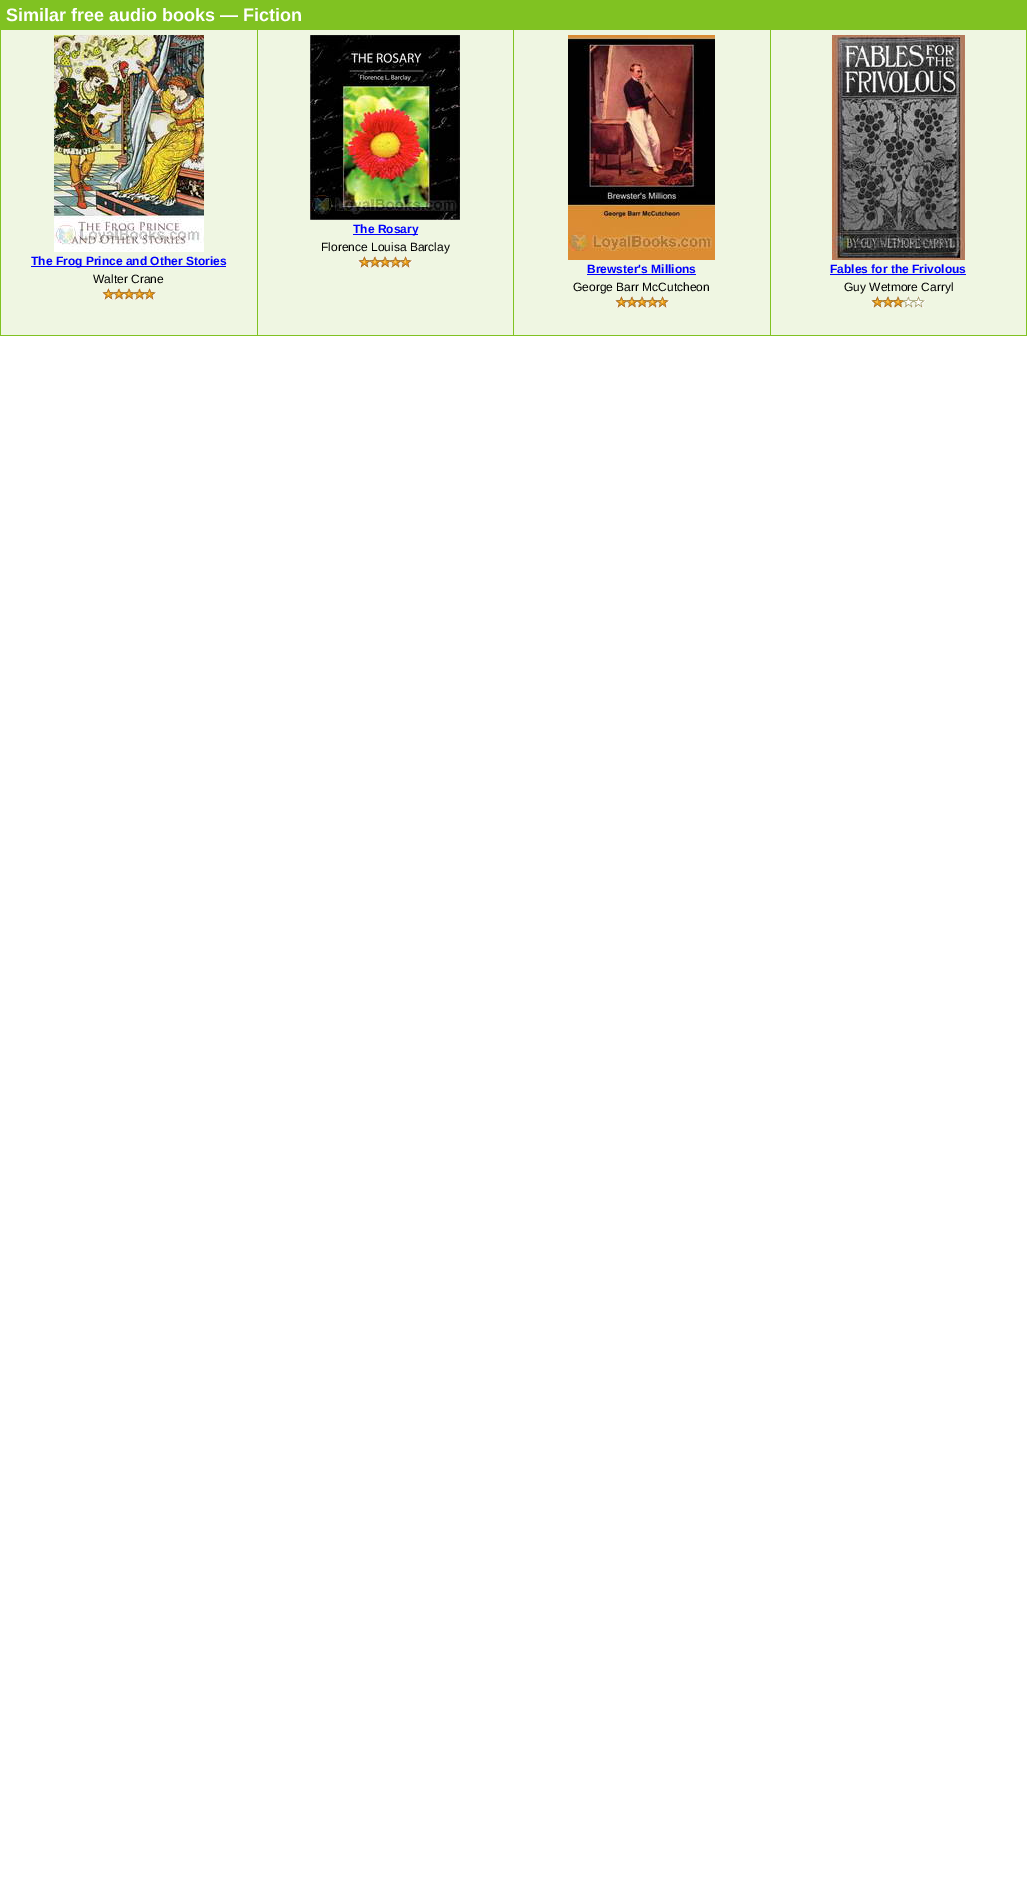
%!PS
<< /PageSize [1027 1886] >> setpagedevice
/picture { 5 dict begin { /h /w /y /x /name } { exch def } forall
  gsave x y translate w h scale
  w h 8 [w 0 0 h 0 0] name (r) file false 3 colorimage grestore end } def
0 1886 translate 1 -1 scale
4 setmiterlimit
1 setgray
0 0 1027 1886 rectfill
0.937 0.965 0.886 setrgbcolor
1 30 1025 305 rectfill
0.502 0.761 0.133 setrgbcolor
0 0 1027 1 rectfill
1026 0 1 336 rectfill
0 335 1027 1 rectfill
0 0 1 336 rectfill
1 1 1025 29 rectfill
/LiberationSans-Bold [18 0 0 -18 0 0] selectfont
1 setgray
6 21 moveto (Similar free audio books — Fiction) show
0.502 0.761 0.133 setrgbcolor
257 29 1 307 rectfill
(img1.rgb) 310 35 150 185 picture
0 0 1 setrgbcolor
353 234 65 1 rectfill
/LiberationSans-Bold [12 0 0 -12 0 0] selectfont
353 233 moveto (The Rosary) show
/LiberationSans-Regular [12 0 0 -12 0 0] selectfont
0 setgray
321 251 moveto (Florence Louisa Barclay) show
(img2.rgb) 357 256 56 12 picture
(img3.rgb) 54 35 150 217 picture
0 0 1 setrgbcolor
31 266 195 1 rectfill
/LiberationSans-Bold [12 0 0 -12 0 0] selectfont
31 265 moveto (The Frog Prince and Other Stories) show
/LiberationSans-Regular [12 0 0 -12 0 0] selectfont
0 setgray
93 283 moveto (Walter Crane) show
(img2.rgb) 101 288 56 12 picture
0.502 0.761 0.133 setrgbcolor
513 29 1 307 rectfill
(img4.rgb) 568 35 147 225 picture
/LiberationSans-Bold [12 0 0 -12 0 0] selectfont
0 0 1 setrgbcolor
587 273 moveto (Brewster's Millions) show
587 274 109 1 rectfill
/LiberationSans-Regular [12 0 0 -12 0 0] selectfont
0 setgray
573 291 moveto (George Barr McCutcheon) show
(img2.rgb) 614 296 56 12 picture
0.502 0.761 0.133 setrgbcolor
770 29 1 307 rectfill
(img5.rgb) 832 35 133 225 picture
/LiberationSans-Bold [12 0 0 -12 0 0] selectfont
0 0 1 setrgbcolor
830 273 moveto (Fables for the Frivolous) show
830 274 136 1 rectfill
/LiberationSans-Regular [12 0 0 -12 0 0] selectfont
0 setgray
844 291 moveto (Guy Wetmore Carryl) show
(img6.rgb) 870 296 56 12 picture
showpage
